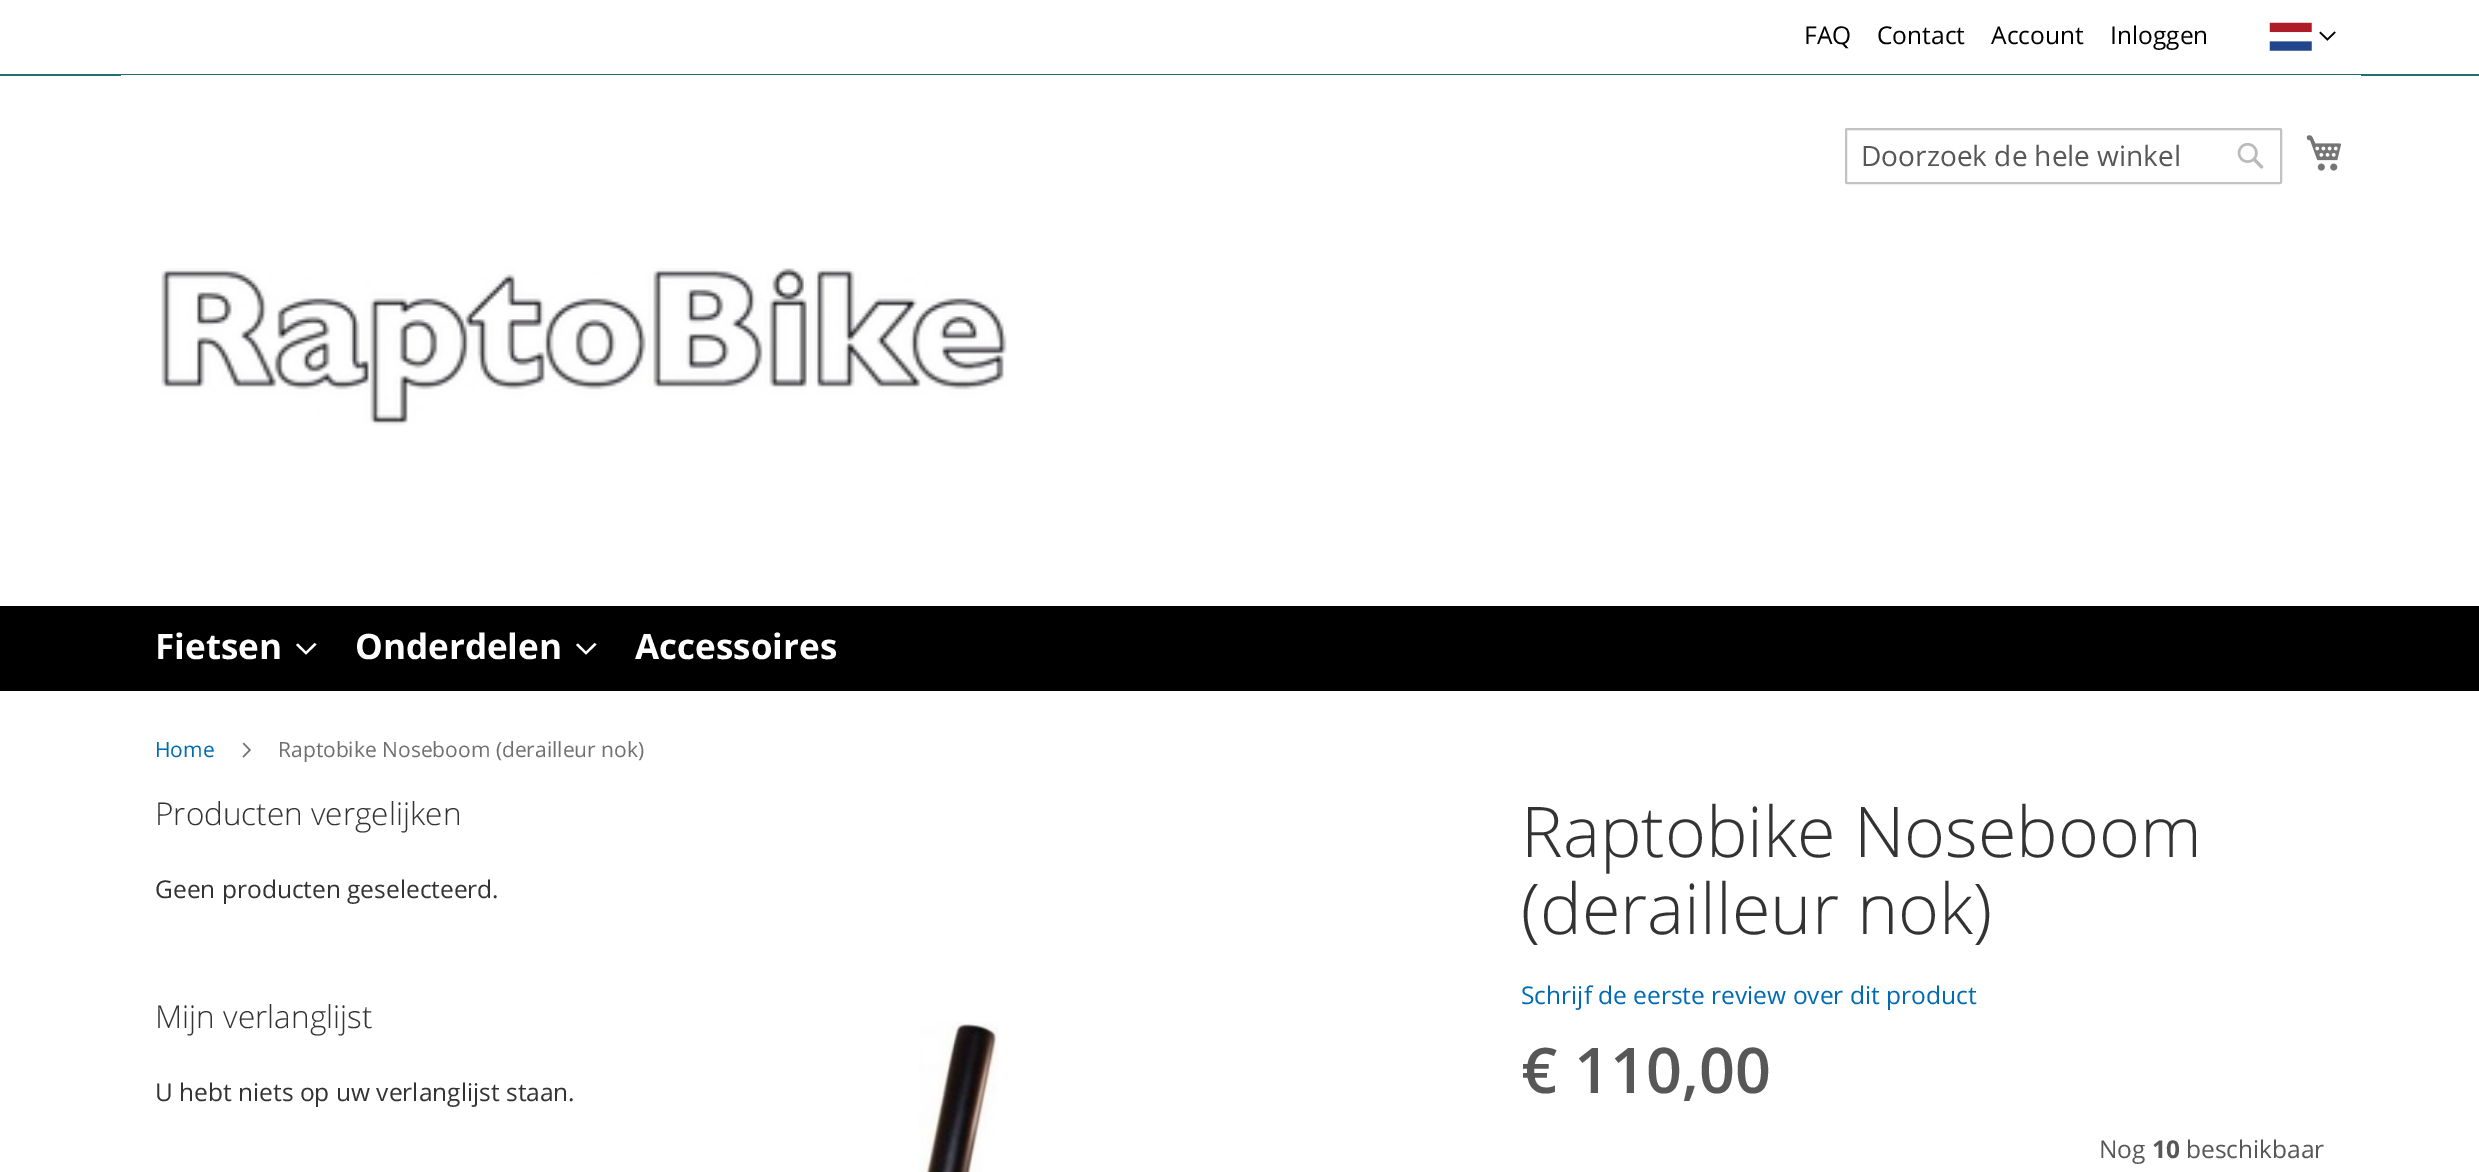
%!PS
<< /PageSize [2479 1172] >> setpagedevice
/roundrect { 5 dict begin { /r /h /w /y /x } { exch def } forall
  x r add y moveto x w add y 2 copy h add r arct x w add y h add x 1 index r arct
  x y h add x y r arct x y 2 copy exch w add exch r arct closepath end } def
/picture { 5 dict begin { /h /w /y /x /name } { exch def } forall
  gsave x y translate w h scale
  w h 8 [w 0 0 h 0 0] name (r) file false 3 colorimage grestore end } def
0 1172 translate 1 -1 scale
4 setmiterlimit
1 setgray
0 0 2479 1172 rectfill
0.125 0.435 0.451 setrgbcolor
0 74 2479 2 rectfill
/OpenSans-Regular [24.5 0 0 -24.5 0 0] selectfont
0 setgray
1804 44 moveto (FAQ) show
1877 44 moveto (Contact) show
1991 44 moveto (Account) show
2110 44 moveto (Inloggen) show
(img1.rgb) 2269 22 43 29 picture
(img2.rgb) 2319 31 17 10 picture
1 setgray
121 75 2240 1 rectfill
0.761 setgray
2 setlinewidth
1846 129 435 54 1 roundrect stroke
/OpenSans-Regular [28 0 0 -28 0 0] selectfont
0.341 setgray
1861 166 moveto (Doorzoek de hele winkel) show
(img3.rgb) 2237 142 27 27 picture
(img4.rgb) 2306 135 35 36 picture
(img5.rgb) 161 268 846 158 picture
0 setgray
0 606 2479 85 rectfill
/OpenSans-Bold [35 0 0 -35 0 0] selectfont
1 setgray
155 659 moveto (Fietsen) show
newpath 306 651.5 moveto 298 643.5 lineto 296 645 lineto 306 654.5 lineto 316.5 644.5 lineto 314.5 643 lineto closepath fill
355 659 moveto (Onderdelen) show
newpath 586 651.5 moveto 578 643.5 lineto 576 645 lineto 586 654.5 lineto 596.5 644.5 lineto 594.5 643 lineto closepath fill
635 659 moveto (Accessoires) show
/OpenSans-Regular [21 0 0 -21 0 0] selectfont
0 0.42 0.706 setrgbcolor
155 757 moveto (Home) show
(img6.rgb) 242 742 9 16 picture
0.439 setgray
278 757 moveto (Raptobike Noseboom \(derailleur nok\)) show
/OpenSans-Light [31.5 0 0 -31.5 0 0] selectfont
0.2 setgray
155 825 moveto (Producten vergelijken) show
/OpenSans-Regular [24.5 0 0 -24.5 0 0] selectfont
155 898 moveto (Geen producten geselecteerd.) show
/OpenSans-Light [31.5 0 0 -31.5 0 0] selectfont
155 1028 moveto (Mijn verlanglijst) show
/OpenSans-Regular [24.5 0 0 -24.5 0 0] selectfont
155 1101 moveto (U hebt niets op uw verlanglijst staan.) show
(img7.rgb) 919 1021 80 151 picture
/OpenSans-Light [70 0 0 -70 0 0] selectfont
1521 857 moveto (Raptobike Noseboom) show
1521 934 moveto (\(derailleur nok\)) show
/OpenSans-Regular [24.5 0 0 -24.5 0 0] selectfont
0 0.42 0.706 setrgbcolor
1521 1004 moveto (Schrijf de eerste review over dit product) show
/OpenSans-SemiBold [63 0 0 -63 0 0] selectfont
0.341 setgray
1521 1093 moveto (€ 110,00) show
/OpenSans-Regular [24.5 0 0 -24.5 0 0] selectfont
2099 1158 moveto (Nog) show
/OpenSans-Bold [24.5 0 0 -24.5 0 0] selectfont
2152 1158 moveto (10) show
/OpenSans-Regular [24.5 0 0 -24.5 0 0] selectfont
2186 1158 moveto (beschikbaar) show
showpage
